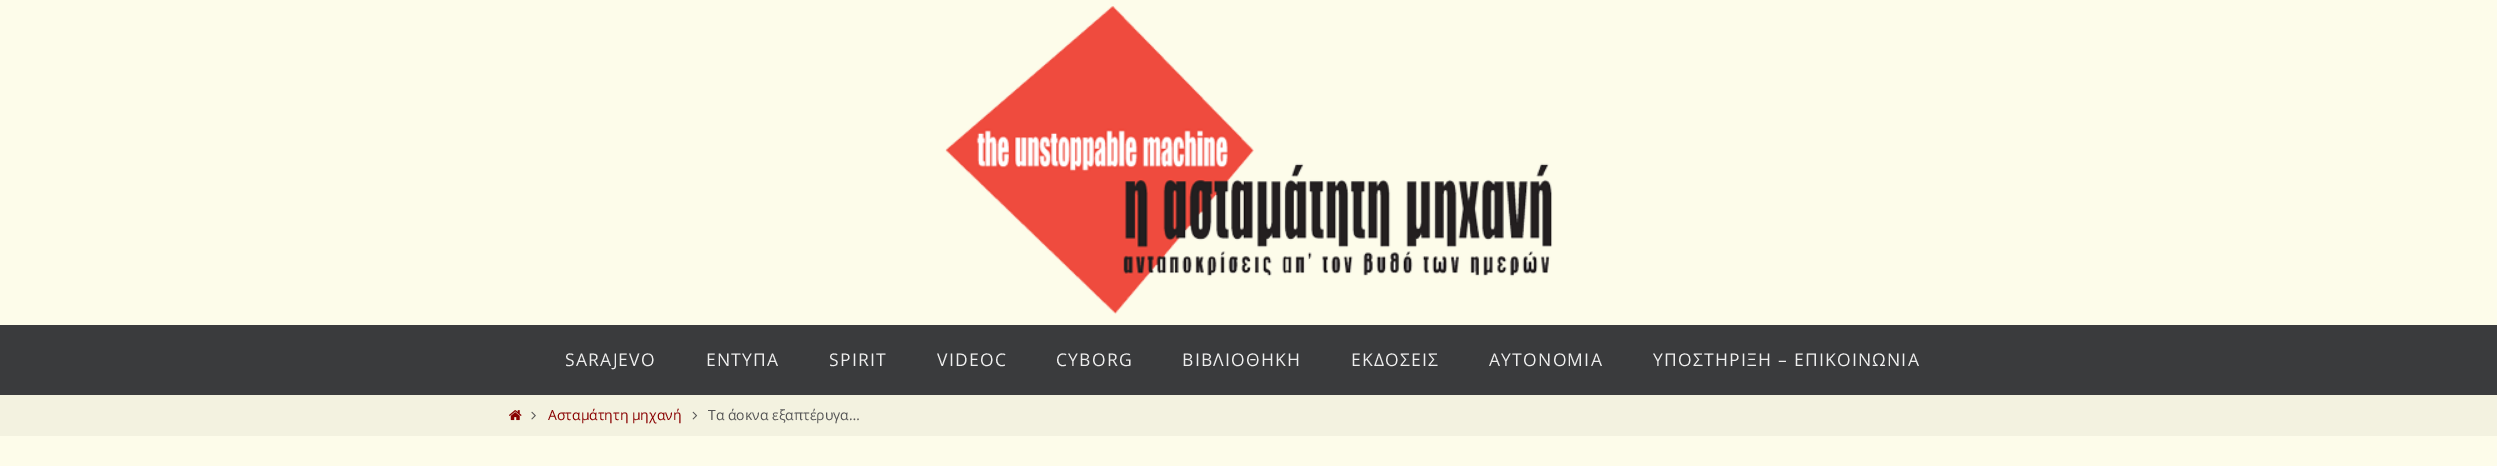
%!PS
<< /PageSize [2497 466] >> setpagedevice
/picture { 5 dict begin { /h /w /y /x /name } { exch def } forall
  gsave x y translate w h scale
  w h 8 [w 0 0 h 0 0] name (r) file false 3 colorimage grestore end } def
0 466 translate 1 -1 scale
4 setmiterlimit
0.992 0.988 0.918 setrgbcolor
0 0 2497 466 rectfill
(img1.rgb) 945 6 608 308 picture
0.227 0.231 0.239 setrgbcolor
0 325 2497 70 rectfill
/OpenSans-Regular [17.5 0 0 -17.5 0 0] selectfont
0.933 setgray
565 366 moveto 1.25 0 (SARAJEVO) ashow
706 366 moveto 1.25 0 (ΕΝΤΥΠΑ) ashow
829 366 moveto 1.25 0 (SPIRIT) ashow
937 366 moveto 1.25 0 (VIDEOC) ashow
1056 366 moveto 1.25 0 (CYBORG) ashow
1182 366 moveto 1.25 0 (ΒΙΒΛΙΟΘΗΚΗ) ashow
1351 366 moveto 1.25 0 (ΕΚΔΟΣΕΙΣ) ashow
1489 366 moveto 1.25 0 (ΑΥΤΟΝΟΜΙΑ) ashow
1653 366 moveto 1.25 0 (ΥΠΟΣΤΗΡΙΞΗ – ΕΠΙΚΟΙΝΩΝΙΑ) ashow
0.953 0.949 0.878 setrgbcolor
0 395 2497 41 rectfill
(img2.rgb) 509 410 13 11 picture
(img3.rgb) 531 411 5 9 picture
/OpenSans-Regular [14 0 0 -14 0 0] selectfont
0.537 0 0 setrgbcolor
548 420 moveto (Ασταμάτητη μηχανή) show
(img4.rgb) 692 411 6 9 picture
0.333 setgray
708 420 moveto (Τα άοκνα εξαπτέρυγα…) show
showpage
